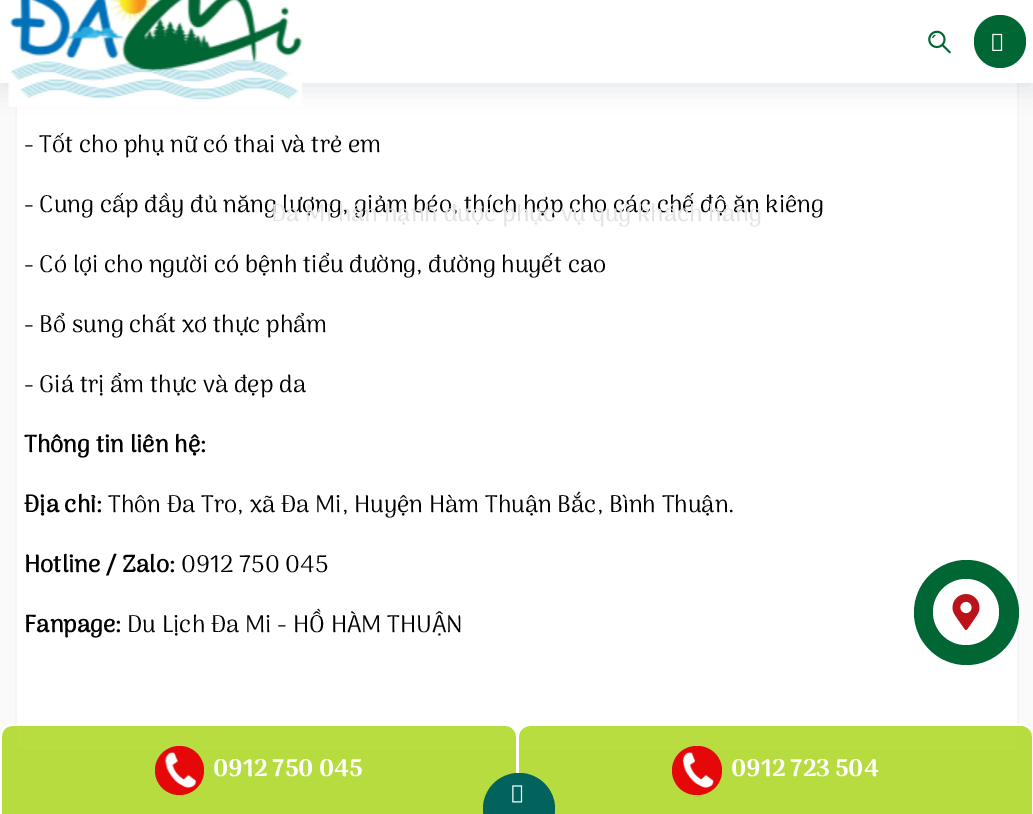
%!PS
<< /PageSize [1033 814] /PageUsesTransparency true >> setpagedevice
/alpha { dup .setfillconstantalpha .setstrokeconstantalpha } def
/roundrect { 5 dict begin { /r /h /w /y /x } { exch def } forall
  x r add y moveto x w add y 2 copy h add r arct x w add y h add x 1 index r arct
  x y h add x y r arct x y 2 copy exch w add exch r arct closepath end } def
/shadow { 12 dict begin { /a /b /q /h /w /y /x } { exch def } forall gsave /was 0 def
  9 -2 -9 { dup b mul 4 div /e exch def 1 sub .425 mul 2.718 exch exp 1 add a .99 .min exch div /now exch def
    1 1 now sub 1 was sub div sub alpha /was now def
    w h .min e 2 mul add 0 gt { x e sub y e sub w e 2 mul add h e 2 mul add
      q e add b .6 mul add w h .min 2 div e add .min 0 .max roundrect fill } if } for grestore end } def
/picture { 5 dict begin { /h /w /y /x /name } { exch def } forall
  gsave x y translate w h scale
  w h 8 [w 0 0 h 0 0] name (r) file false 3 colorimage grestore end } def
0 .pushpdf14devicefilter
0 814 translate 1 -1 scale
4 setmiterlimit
0.98 setgray
0 0 1033 814 rectfill
1 setgray
17 83 1000 667 rectfill
0.965 0.957 0.961 setrgbcolor
1017 83 2 669 rectfill
15 750 1004 2 rectfill
15 106 2 646 rectfill
0 0.129 0.333 setrgbcolor
0 8 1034 82 0 11 0.1 shadow
1 setgray
0 0 1033 83 rectfill
(img1.rgb) 8 0 295 107 picture
(img2.rgb) 928 30 23 24 picture
0 0.4 0.204 setrgbcolor
974 15 52 53 26 roundrect fill
(img3.rgb) 992 33 11 18 picture
/Arima-Regular [24 0 0 -24 0 0] selectfont
0 setgray
24 152 moveto (- Tốt cho phụ nữ có thai và trẻ em) show
24 212 moveto (- Cung cấp đầy đủ năng lượng, giảm béo, thích hợp cho các chế độ ăn kiêng) show
24 272 moveto (- Có lợi cho người có bệnh tiểu đường, đường huyết cao) show
24 332 moveto (- Bổ sung chất xơ thực phẩm) show
24 392 moveto (- Giá trị ẩm thực và đẹp da) show
/Arima-Bold [24 0 0 -24 0 0] selectfont
24 452 moveto (Thông tin liên hệ:) show
24 512 moveto (Địa chỉ:) show
/Arima-Regular [24 0 0 -24 0 0] selectfont
108 512 moveto (Thôn Đa Tro, xã Đa Mi, Huyện Hàm Thuận Bắc, Bình Thuận.) show
/Arima-Bold [24 0 0 -24 0 0] selectfont
24 572 moveto (Hotline / Zalo:) show
/Arima-Regular [24 0 0 -24 0 0] selectfont
181 572 moveto (0912 750 045) show
/Arima-Bold [24 0 0 -24 0 0] selectfont
24 632 moveto (Fanpage:) show
/Arima-Regular [24 0 0 -24 0 0] selectfont
127 632 moveto (Du Lịch Đa Mi - HỒ HÀM THUẬN) show
/Arima-Medium [24 0 0 -24 0 0] selectfont
0.89 setgray
271 221 moveto (Đa Mi hân hạnh được phục vụ quý khách hàng) show
0 0.4 0.204 setrgbcolor
newpath 966.5 612.5 52.5 0 360 arc closepath fill
1 setgray
newpath 966 612 33 0 360 arc closepath fill
(img4.rgb) 952 594 28 36 picture
0.8 alpha
0.647 0.835 0.067 setrgbcolor
newpath 12 725 moveto 506 725 lineto 512.5 725 518 730.5 518 737 curveto 518 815 lineto 0 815 lineto 0 737 lineto 0 730.5 5.5 725 12 725 curveto closepath fill
1 alpha
1 setgray
newpath 12 724 moveto 506 724 lineto 512 724 518 730 518 736 curveto 518 814 lineto 0 814 lineto 0 736 lineto 0 730 5 724 12 724 curveto closepath 12 726 moveto 506 726 lineto 511 726 516 731 516 736 curveto 516 814 lineto 2 814 lineto 2 736 lineto 2 731 6 726 12 726 curveto closepath eofill
0.902 0.031 0.031 setrgbcolor
newpath 179.5 770.5 24.5 0 360 arc closepath fill
(img5.rgb) 164 752 32 36 picture
/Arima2-Bold [24 0 0 -24 0 0] selectfont
1 setgray
213 776 moveto (0912 750 045) show
0.8 alpha
0.647 0.835 0.067 setrgbcolor
newpath 530 725 moveto 1022 725 lineto 1028.5 725 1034 730.5 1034 737 curveto 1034 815 lineto 518 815 lineto 518 737 lineto 518 730.5 523.5 725 530 725 curveto closepath fill
1 alpha
1 setgray
newpath 530 724 moveto 1022 724 lineto 1028 724 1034 730 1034 736 curveto 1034 814 lineto 518 814 lineto 518 736 lineto 518 730 523 724 530 724 curveto closepath 530 726 moveto 1022 726 lineto 1027 726 1032 731 1032 736 curveto 1032 814 lineto 519 814 lineto 519 736 lineto 519 731 524 726 530 726 curveto closepath eofill
0.902 0.031 0.031 setrgbcolor
672 746 50 49 24.5 roundrect fill
(img6.rgb) 682 752 32 36 picture
1 setgray
731 776 moveto (0912 723 504) show
0 0.4 0.204 setrgbcolor
newpath 519 809 36 0 360 arc closepath fill
0.28 alpha
0.02 0.357 0.753 setrgbcolor
newpath 519 809 36 0 360 arc closepath fill
1 alpha
(img7.rgb) 512 785 11 18 picture
.poppdf14devicefilter showpage
